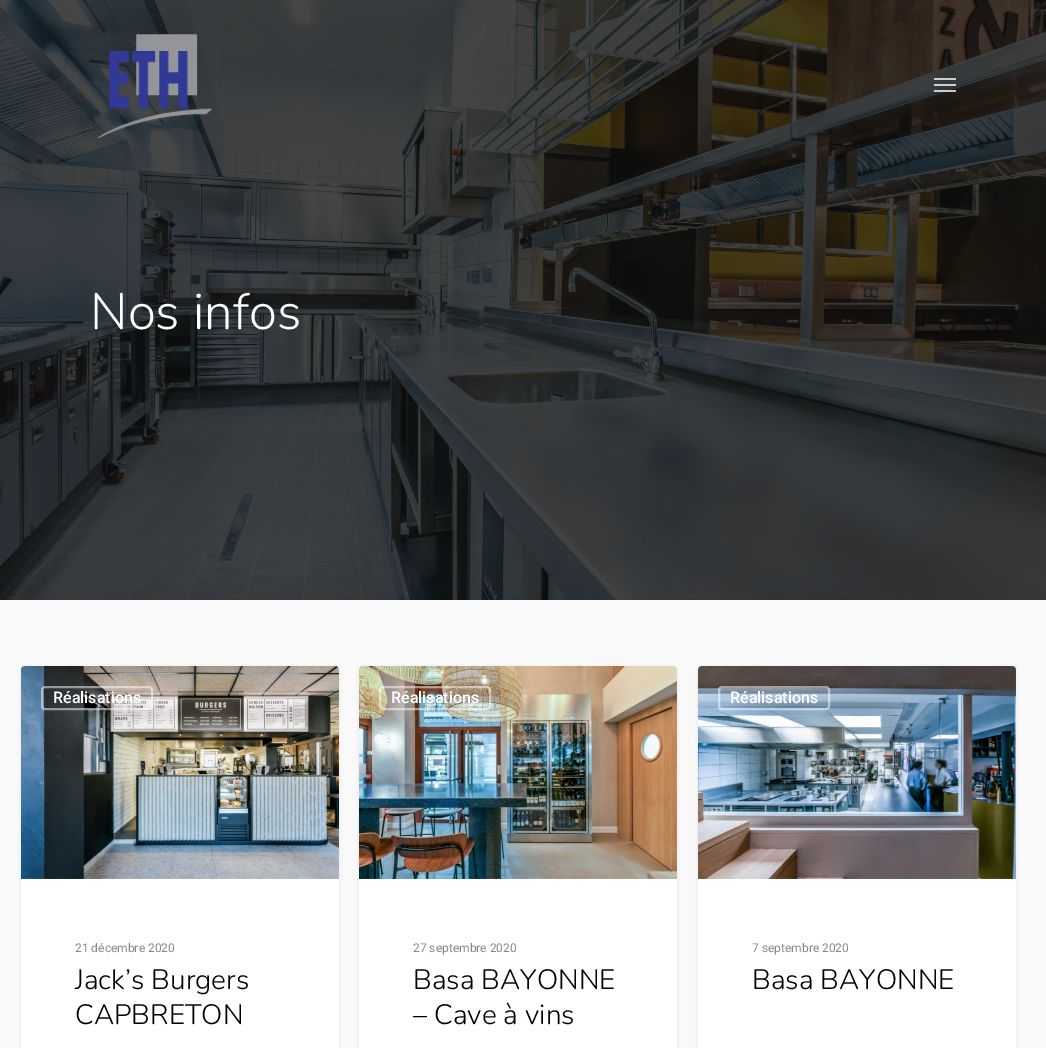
%!PS
<< /PageSize [1046 1048] /PageUsesTransparency true >> setpagedevice
/alpha { dup .setfillconstantalpha .setstrokeconstantalpha } def
/roundrect { 5 dict begin { /r /h /w /y /x } { exch def } forall
  x r add y moveto x w add y 2 copy h add r arct x w add y h add x 1 index r arct
  x y h add x y r arct x y 2 copy exch w add exch r arct closepath end } def
/shadow { 12 dict begin { /a /b /q /h /w /y /x } { exch def } forall gsave /was 0 def
  9 -2 -9 { dup b mul 4 div /e exch def 1 sub .425 mul 2.718 exch exp 1 add a .99 .min exch div /now exch def
    1 1 now sub 1 was sub div sub alpha /was now def
    w h .min e 2 mul add 0 gt { x e sub y e sub w e 2 mul add h e 2 mul add
      q e add b .6 mul add w h .min 2 div e add .min 0 .max roundrect fill } if } for grestore end } def
/picture { 5 dict begin { /h /w /y /x /name } { exch def } forall
  gsave x y translate w h scale
  w h 8 [w 0 0 h 0 0] name (r) file false 3 colorimage grestore end } def
0 .pushpdf14devicefilter
0 1048 translate 1 -1 scale
4 setmiterlimit
1 setgray
0 0 1046 1048 rectfill
(img2.rgb) 0 0 1046 600 picture
(img1.rgb) 97 34 115 104 picture
0.75 alpha
934 78 22 2 rectfill
934 90 22 2 rectfill
934 84 22 2 rectfill
/Nunito-Light [51 0 0 -51 0 0] selectfont
1 alpha
90 329 moveto (Nos infos) show
0.976 setgray
0 600 1046 448 rectfill
0 setgray
21 667 318 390 4 1.5 0.08 shadow
1 setgray
21 666 318 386 4 roundrect fill
(img3.rgb) 21 666 318 213 picture
0.5 alpha
2 setlinewidth
42 687 110 22 3 roundrect stroke
/Roboto-Medium [16 0 0 -16 0 0] selectfont
1 alpha
53 703 moveto (Réalisations) show
/Roboto-Regular [12 0 0 -12 0 0] selectfont
0.533 setgray
75 952 moveto (21 décembre 2020) show
/Nunito-Light [28 0 0 -28 0 0] selectfont
0 setgray
75 989 moveto (Jack’s Burgers) show
75 1024 moveto (CAPBRETON) show
359 667 318 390 4 1.5 0.08 shadow
1 setgray
359 666 318 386 4 roundrect fill
(img4.rgb) 359 666 318 213 picture
0.5 alpha
380 687 110 22 3 roundrect stroke
/Roboto-Medium [16 0 0 -16 0 0] selectfont
1 alpha
391 703 moveto (Réalisations) show
/Roboto-Regular [12 0 0 -12 0 0] selectfont
0.533 setgray
413 952 moveto (27 septembre 2020) show
/Nunito-Light [28 0 0 -28 0 0] selectfont
0 setgray
413 989 moveto (Basa BAYONNE) show
413 1024 moveto (– Cave à vins) show
698 667 318 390 4 1.5 0.08 shadow
1 setgray
698 666 318 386 4 roundrect fill
(img5.rgb) 698 666 318 213 picture
0.5 alpha
719 687 110 22 3 roundrect stroke
/Roboto-Medium [16 0 0 -16 0 0] selectfont
1 alpha
730 703 moveto (Réalisations) show
/Roboto-Regular [12 0 0 -12 0 0] selectfont
0.533 setgray
752 952 moveto (7 septembre 2020) show
/Nunito-Light [28 0 0 -28 0 0] selectfont
0 setgray
752 989 moveto (Basa BAYONNE) show
.poppdf14devicefilter showpage
